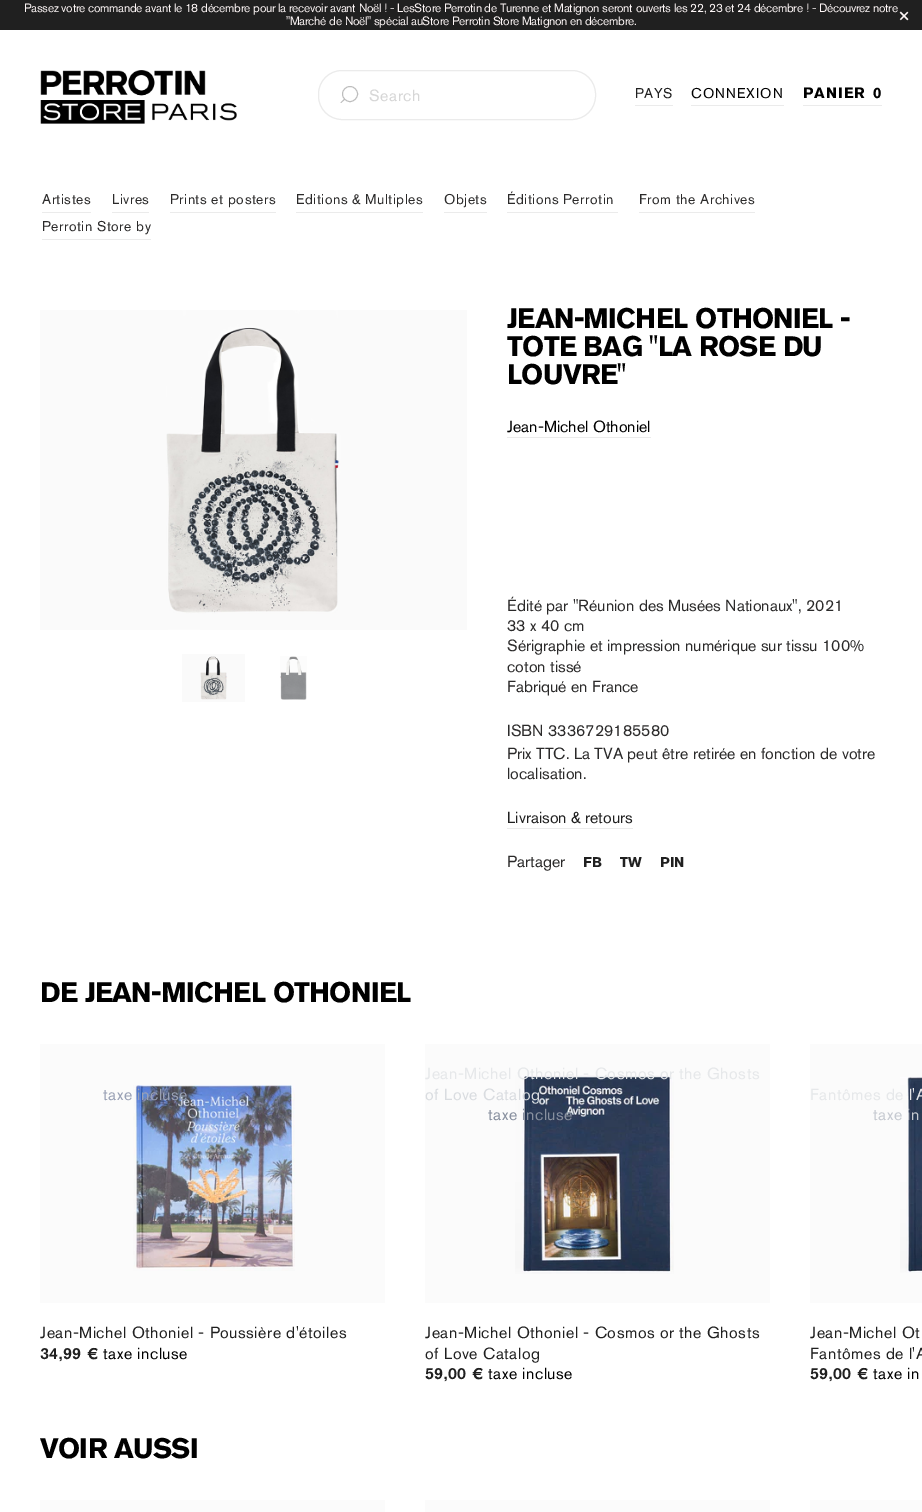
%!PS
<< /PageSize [922 1512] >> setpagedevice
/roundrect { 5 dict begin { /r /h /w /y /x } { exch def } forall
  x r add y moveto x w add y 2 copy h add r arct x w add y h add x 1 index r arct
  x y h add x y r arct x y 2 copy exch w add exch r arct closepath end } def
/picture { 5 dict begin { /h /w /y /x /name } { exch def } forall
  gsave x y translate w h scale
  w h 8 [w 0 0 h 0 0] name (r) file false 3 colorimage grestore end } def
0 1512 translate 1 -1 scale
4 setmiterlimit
1 setgray
0 0 922 1512 rectfill
0.125 setgray
0 0 922 30 rectfill
/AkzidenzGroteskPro-Regular [12 0 0 -12 0 0] selectfont
0.992 0.965 0.965 setrgbcolor
24 12 moveto -0.3 0 (Passez votre commande avant le 18 décembre pour la recevoir avant Noël ! - LesStore Perrotin de Turenne et Matignon seront ouverts les 22, 23 et 24 décembre ! - Découvrez notre) ashow
286 25 moveto -0.3 0 ("Marché de Noël" spécial auStore Perrotin Store Matignon en décembre.) ashow
/AkzidenzGroteskPro-Regular [20 0 0 -20 0 0] selectfont
897 22 moveto -0.3 0 (×) ashow
(img1.rgb) 40 70 197 54 picture
0.922 setgray
318.5 70.5 277 49 23.5 roundrect stroke
0.741 setgray
0.9 setlinewidth
newpath 350 94 7.5 0 360 arc closepath stroke
0.729 setgray
newpath 340.5 102.5 moveto 344.5 98.5 lineto 345 99.5 lineto 341 103 lineto closepath eofill
/AkzidenzGroteskPro-Regular [16 0 0 -16 0 0] selectfont
0.839 setgray
369 101 moveto 0.5 0 (Search) ashow
0.922 setgray
635 105 38 1 rectfill
/AkzidenzGroteskPro-Regular [14 0 0 -14 0 0] selectfont
0.125 setgray
635 98 moveto 0.5 0 (PAYS) ashow
0.922 setgray
691 105 93 1 rectfill
0 setgray
691 98 moveto 1 0 (CONNEXION) ashow
0.922 setgray
803 105 79 1 rectfill
/AkzidenzGroteskPro-Bold [15 0 0 -15 0 0] selectfont
0 setgray
803 98 moveto 1 0 (PANIER) ashow
873 98 moveto 1 0 (0) ashow
0.922 setgray
42 212 49 1 rectfill
/AkzidenzGroteskPro-Regular [14 0 0 -14 0 0] selectfont
0.169 0.165 0.165 setrgbcolor
42 204 moveto 0.5 0 (Artistes) ashow
0.922 setgray
112 212 37 1 rectfill
0.169 0.165 0.165 setrgbcolor
112 204 moveto 0.5 0 (Livres) ashow
0.922 setgray
170 212 106 1 rectfill
0.169 0.165 0.165 setrgbcolor
170 204 moveto 0.5 0 (Prints et posters) ashow
0.922 setgray
296 212 127 1 rectfill
0.169 0.165 0.165 setrgbcolor
296 204 moveto 0.5 0 (Editions & Multiples) ashow
0.922 setgray
444 212 43 1 rectfill
0.169 0.165 0.165 setrgbcolor
444 204 moveto 0.5 0 (Objets) ashow
0.922 setgray
507 212 111 1 rectfill
0.169 0.165 0.165 setrgbcolor
507 204 moveto 0.5 0 (Éditions Perrotin) ashow
0.922 setgray
639 212 116 1 rectfill
0.169 0.165 0.165 setrgbcolor
639 204 moveto 0.5 0 (From the Archives) ashow
0.922 setgray
42 239 109 1 rectfill
0.169 0.165 0.165 setrgbcolor
42 231 moveto 0.5 0 (Perrotin Store by) ashow
(img2.rgb) 40 310 427 320 picture
(img3.rgb) 182 654 63 48 picture
(img4.rgb) 280 656 27 44 picture
/AkzidenzGroteskPro-Bold [28 0 0 -28 0 0] selectfont
0 setgray
507 328 moveto -0.7 0 (JEAN-MICHEL OTHONIEL -) ashow
507 356 moveto -0.7 0 (TOTE BAG "LA ROSE DU) ashow
507 384 moveto -0.7 0 (LOUVRE") ashow
/AkzidenzGroteskPro-Regular [16 0 0 -16 0 0] selectfont
507 432 moveto (Jean-Michel Othoniel) show
0.922 setgray
507 437 144 1 rectfill
0.169 0.165 0.165 setrgbcolor
507 611 moveto (Édité par "Réunion des Musées Nationaux", 2021) show
507 631 moveto (33 x 40 cm) show
507 651 moveto (Sérigraphie et impression numérique sur tissu 100%) show
507 672 moveto (coton tissé) show
507 692 moveto (Fabriqué en France) show
507 736 moveto (ISBN 3336729185580) show
507 759 moveto (Prix TTC. La TVA peut être retirée en fonction de votre) show
507 779 moveto (localisation.) show
0.125 setgray
507 823 moveto (Livraison & retours) show
0.922 setgray
507 828 126 1 rectfill
0.169 0.165 0.165 setrgbcolor
507 867 moveto (Partager) show
/AkzidenzGroteskPro-Bold [14 0 0 -14 0 0] selectfont
0.125 setgray
583 867 moveto (FB) show
620 867 moveto (TW) show
660 867 moveto (PIN) show
/AkzidenzGroteskPro-Bold [28 0 0 -28 0 0] selectfont
0 setgray
40 1002 moveto -0.7 0 (DE JEAN-MICHEL OTHONIEL) ashow
0.984 setgray
40 1044 345 259 rectfill
(img5.rgb) 133 1085 162 186 picture
/AkzidenzGroteskPro-Regular [16 0 0 -16 0 0] selectfont
0.6 0.631 0.71 setrgbcolor
103 1100 moveto 0.5 0 (taxe incluse) ashow
0.125 setgray
40 1338 moveto 0.5 0 (Jean-Michel Othoniel - Poussière d'étoiles) ashow
/AkzidenzGroteskPro-Medium [16 0 0 -16 0 0] selectfont
40 1359 moveto 0.5 0 (34,99 €) ashow
/AkzidenzGroteskPro-Regular [16 0 0 -16 0 0] selectfont
0 setgray
103 1359 moveto 0.5 0 (taxe incluse) ashow
0.984 setgray
425 1044 345 259 rectfill
(img6.rgb) 515 1075 159 199 picture
0.902 0.91 0.918 setrgbcolor
425 1079 moveto 0.5 0 (Jean-Michel Othoniel - Cosmos or the Ghosts) ashow
0.851 0.863 0.878 setrgbcolor
425 1100 moveto 0.5 0 (of Love Catalog) ashow
0.533 0.565 0.624 setrgbcolor
488 1120 moveto 0.5 0 (taxe incluse) ashow
0.125 setgray
425 1338 moveto 0.5 0 (Jean-Michel Othoniel - Cosmos or the Ghosts) ashow
425 1359 moveto 0.5 0 (of Love Catalog) ashow
/AkzidenzGroteskPro-Medium [16 0 0 -16 0 0] selectfont
425 1379 moveto 0.5 0 (59,00 €) ashow
/AkzidenzGroteskPro-Regular [16 0 0 -16 0 0] selectfont
0 setgray
488 1379 moveto 0.5 0 (taxe incluse) ashow
0.984 setgray
810 1044 112 259 rectfill
(img7.rgb) 900 1077 22 196 picture
0.902 0.91 0.918 setrgbcolor
810 1100 moveto 0.5 0 (Fantômes de l'A) ashow
0.776 0.792 0.82 setrgbcolor
873 1120 moveto 0.5 0 (taxe in) ashow
0.125 setgray
810 1338 moveto 0.5 0 (Jean-Michel Ot) ashow
810 1359 moveto 0.5 0 (Fantômes de l'A) ashow
/AkzidenzGroteskPro-Medium [16 0 0 -16 0 0] selectfont
810 1379 moveto 0.5 0 (59,00 €) ashow
/AkzidenzGroteskPro-Regular [16 0 0 -16 0 0] selectfont
0 setgray
873 1379 moveto 0.5 0 (taxe in) ashow
/AkzidenzGroteskPro-Bold [28 0 0 -28 0 0] selectfont
40 1458 moveto -0.7 0 (VOIR AUSSI) ashow
0.984 setgray
40 1500 345 12 rectfill
425 1500 345 12 rectfill
810 1500 112 12 rectfill
showpage
